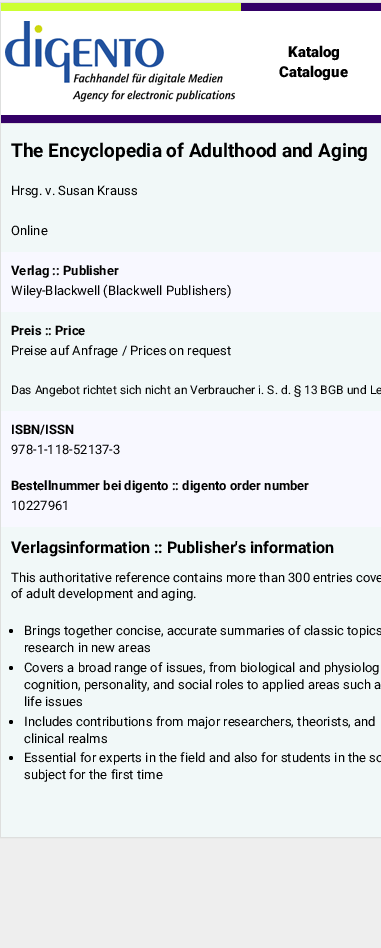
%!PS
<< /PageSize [381 948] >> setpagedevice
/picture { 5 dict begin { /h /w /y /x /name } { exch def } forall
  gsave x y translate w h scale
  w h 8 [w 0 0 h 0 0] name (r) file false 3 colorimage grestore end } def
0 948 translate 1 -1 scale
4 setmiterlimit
0.933 setgray
0 0 381 948 rectfill
1 setgray
1 11 380 104 rectfill
0.871 0.875 0.871 setrgbcolor
0 2 381 1 rectfill
0 2 1 121 rectfill
0.8 1 0.2 setrgbcolor
1 3 240 8 rectfill
0.2 0 0.4 setrgbcolor
241 3 140 8 rectfill
(img1.rgb) 5 21 230 81 picture
/Roboto-Black [15 0 0 -15 0 0] selectfont
0 setgray
288 57 moveto (Katalog) show
279 77 moveto (Catalogue) show
0.2 0 0.4 setrgbcolor
1 115 380 8 rectfill
0.871 0.875 0.871 setrgbcolor
0.5 123.5 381 714 rectstroke
0.945 0.973 0.973 setrgbcolor
1 124 380 128 rectfill
/Roboto-Bold [19 0 0 -19 0 0] selectfont
0 setgray
11 157 moveto (The Encyclopedia of Adulthood and Aging) show
/Roboto-Regular [13 0 0 -13 0 0] selectfont
11 195 moveto (Hrsg. v. Susan Krauss) show
11 235 moveto (Online) show
0.973 0.973 1 setrgbcolor
1 252 380 60 rectfill
/Roboto-Bold [13 0 0 -13 0 0] selectfont
0 setgray
11 275 moveto (Verlag :: Publisher) show
/Roboto-Regular [13 0 0 -13 0 0] selectfont
11 295 moveto (Wiley-Blackwell \(Blackwell Publishers\)) show
0.945 0.973 0.973 setrgbcolor
1 312 380 99 rectfill
/Roboto-Bold [13 0 0 -13 0 0] selectfont
0 setgray
11 335 moveto (Preis :: Price) show
/Roboto-Regular [13 0 0 -13 0 0] selectfont
11 355 moveto (Preise auf Anfrage / Prices on request) show
/Roboto-Regular [12 0 0 -12 0 0] selectfont
11 394 moveto (Das Angebot richtet sich nicht an Verbraucher i. S. d. § 13 BGB und Le) show
0.973 0.973 1 setrgbcolor
1 411 380 116 rectfill
/Roboto-Bold [13 0 0 -13 0 0] selectfont
0 setgray
11 434 moveto (ISBN/ISSN) show
/Roboto-Regular [13 0 0 -13 0 0] selectfont
11 454 moveto (978-1-118-52137-3) show
/Roboto-Bold [13 0 0 -13 0 0] selectfont
11 490 moveto (Bestellnummer bei digento :: digento order number) show
/Roboto-Regular [13 0 0 -13 0 0] selectfont
11 510 moveto (10227961) show
0.945 0.973 0.973 setrgbcolor
1 527 380 310 rectfill
/Roboto-Bold [16 0 0 -16 0 0] selectfont
0 setgray
11 553 moveto (Verlagsinformation :: Publisher's information) show
/Roboto-Regular [13 0 0 -13 0 0] selectfont
11 582 moveto (This authoritative reference contains more than 300 entries cove) show
11 598 moveto (of adult development and aging.) show
newpath 11 631 2 0 360 arc closepath fill
24 635 moveto (Brings together concise, accurate summaries of classic topics) show
24 652 moveto (research in new areas) show
newpath 11 668 2 0 360 arc closepath fill
24 672 moveto (Covers a broad range of issues, from biological and physiolog) show
24 689 moveto (cognition, personality, and social roles to applied areas such a) show
24 706 moveto (life issues) show
newpath 11 722 2 0 360 arc closepath fill
24 726 moveto (Includes contributions from major researchers, theorists, and) show
24 743 moveto (clinical realms) show
newpath 11 758 2 0 360 arc closepath fill
24 762 moveto (Essential for experts in the field and also for students in the so) show
24 779 moveto (subject for the first time) show
showpage
